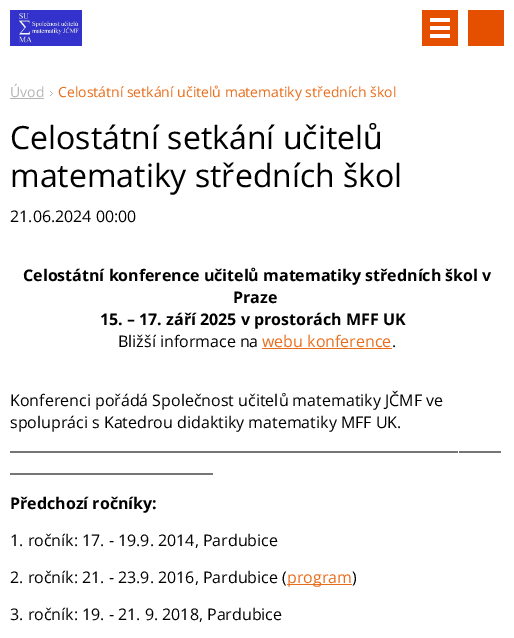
%!PS
<< /PageSize [514 638] >> setpagedevice
/picture { 5 dict begin { /h /w /y /x /name } { exch def } forall
  gsave x y translate w h scale
  w h 8 [w 0 0 h 0 0] name (r) file false 3 colorimage grestore end } def
0 638 translate 1 -1 scale
4 setmiterlimit
1 setgray
0 0 514 638 rectfill
(img1.rgb) 10 10 72 36 picture
0.894 0.31 0 setrgbcolor
422 10 36 36 rectfill
1 setgray
430 18 20 4 rectfill
430 34 20 4 rectfill
430 26 20 4 rectfill
0.894 0.31 0 setrgbcolor
468 10 36 36 rectfill
/OpenSans-Regular [14 0 0 -14 0 0] selectfont
0.71 setgray
10 97 moveto (Úvod) show
10 98 34 1 rectfill
(img2.rgb) 50 91 3 5 picture
0.914 0.427 0.102 setrgbcolor
58 97 moveto (Celostátní setkání učitelů matematiky středních škol) show
/OpenSans-Regular [32 0 0 -32 0 0] selectfont
0 setgray
10 149 moveto (Celostátní setkání učitelů) show
10 187 moveto (matematiky středních škol) show
/OpenSans-Regular [16 0 0 -16 0 0] selectfont
10 222 moveto (21.06.2024 00:00) show
/OpenSans-Bold [16 0 0 -16 0 0] selectfont
23 281 moveto (Celostátní konference učitelů matematiky středních škol v) show
233 303 moveto (Praze) show
100 325 moveto (15. – 17. září 2025 v prostorách MFF UK) show
/OpenSans-Regular [16 0 0 -16 0 0] selectfont
118 347 moveto (Bližší informace na) show
0.914 0.427 0.102 setrgbcolor
262 347 moveto (webu konference) show
262 348 130 1 rectfill
0 setgray
392 347 moveto (.) show
10 406 moveto (Konferenci pořádá Společnost učitelů matematiky JČMF ve) show
10 428 moveto (spolupráci s Katedrou didaktiky matematiky MFF UK.) show
10 450 moveto (______________________________________________________________________) show
10 472 moveto (_____________________________) show
/OpenSans-Bold [16 0 0 -16 0 0] selectfont
10 509 moveto (Předchozí ročníky:) show
/OpenSans-Regular [16 0 0 -16 0 0] selectfont
10 546 moveto (1. ročník: 17. - 19.9. 2014, Pardubice) show
10 583 moveto (2. ročník: 21. - 23.9. 2016, Pardubice \() show
0.914 0.427 0.102 setrgbcolor
287 584 65 1 rectfill
287 583 moveto (program) show
0 setgray
352 583 moveto (\)) show
10 620 moveto (3. ročník: 19. - 21. 9. 2018, Pardubice) show
showpage
